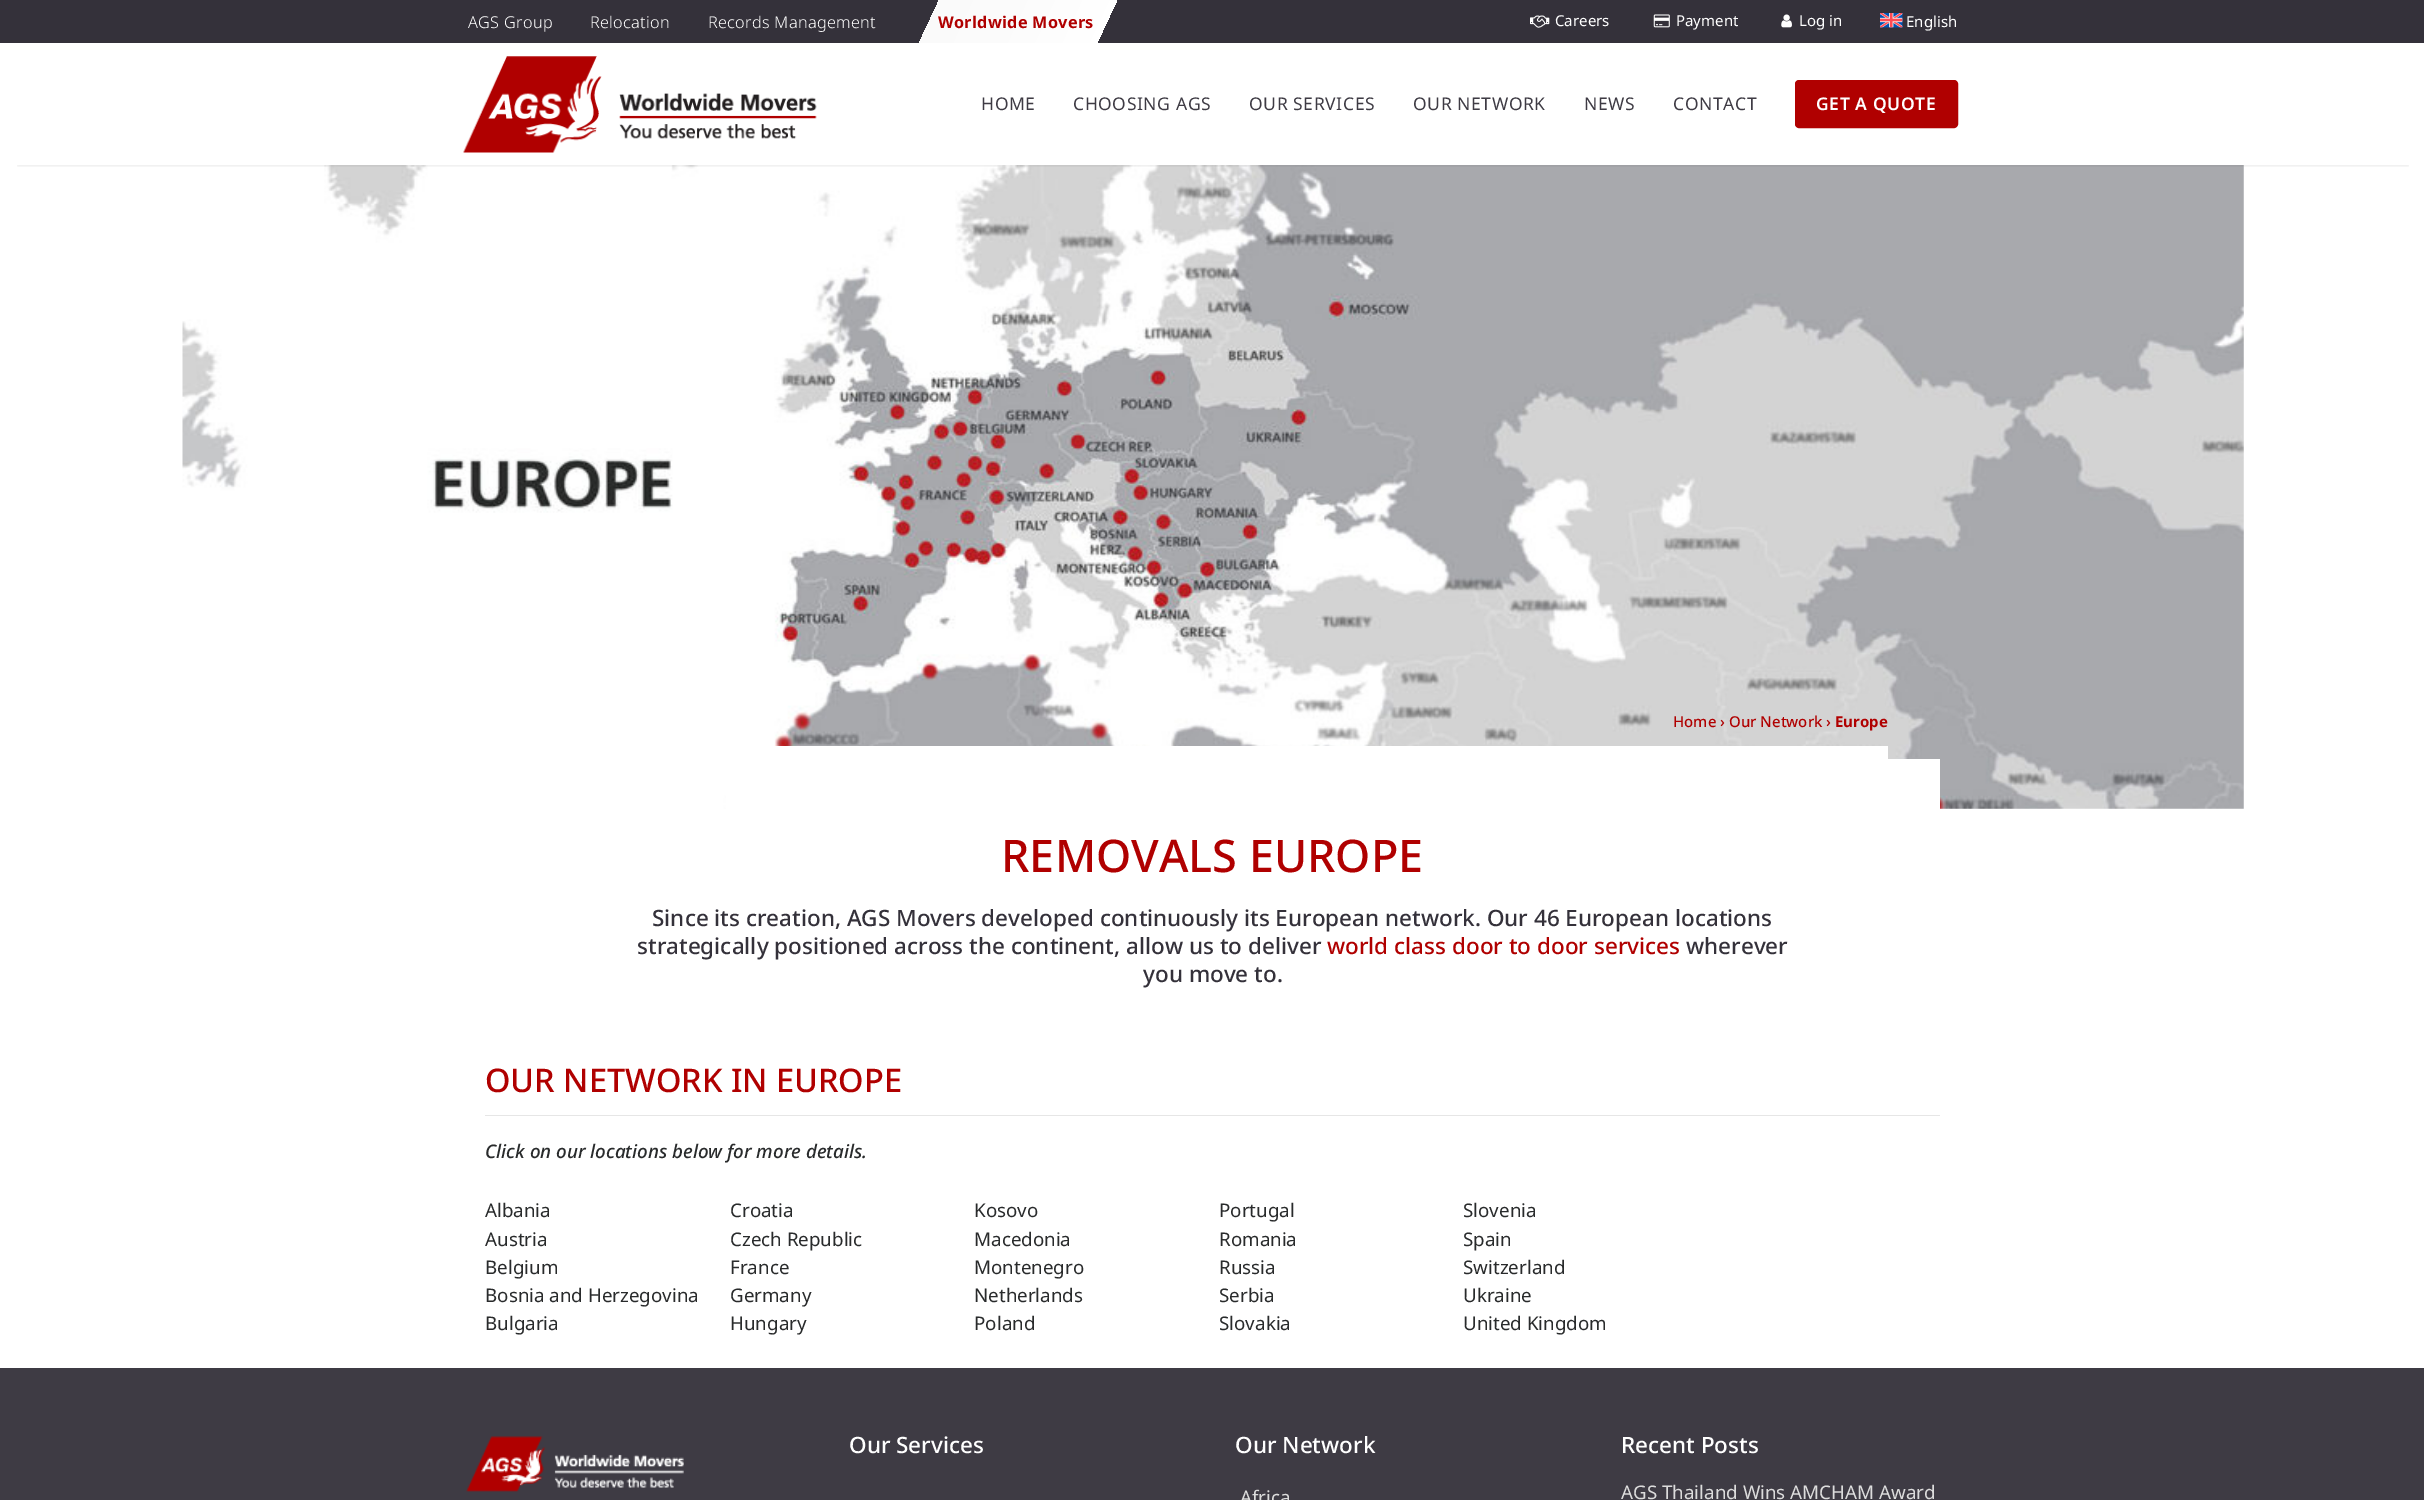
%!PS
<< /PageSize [2424 1500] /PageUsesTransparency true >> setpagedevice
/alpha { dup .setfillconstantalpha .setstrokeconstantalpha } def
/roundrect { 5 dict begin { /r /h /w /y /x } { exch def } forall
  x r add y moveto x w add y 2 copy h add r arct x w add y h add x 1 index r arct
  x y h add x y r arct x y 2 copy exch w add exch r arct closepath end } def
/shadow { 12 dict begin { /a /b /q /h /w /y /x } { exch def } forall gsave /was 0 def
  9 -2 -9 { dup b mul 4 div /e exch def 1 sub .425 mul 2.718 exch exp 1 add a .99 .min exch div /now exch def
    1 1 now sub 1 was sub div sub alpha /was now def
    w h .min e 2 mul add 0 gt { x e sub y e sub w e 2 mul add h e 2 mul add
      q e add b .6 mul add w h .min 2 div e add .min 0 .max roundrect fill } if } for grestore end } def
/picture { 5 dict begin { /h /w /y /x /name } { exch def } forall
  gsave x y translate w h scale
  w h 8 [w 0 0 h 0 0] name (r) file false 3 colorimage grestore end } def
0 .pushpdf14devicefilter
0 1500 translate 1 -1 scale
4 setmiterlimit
1 setgray
0 0 2424 1500 rectfill
(img6.rgb) 182 165 2062 644 picture
gsave
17 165 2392 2 rectclip
0 setgray
18 33 2390 130 0 3 0.3 shadow
grestore
0.204 0.192 0.227 setrgbcolor
0 0 2424 43 rectfill
/NotoSans-Light [16.25 0 0 -16.25 0 0] selectfont
1 setgray
468 28 moveto 0.3 0 (AGS Group) ashow
590 28 moveto 0.3 0 (Relocation) ashow
708 28 moveto 0.3 0 (Records Management) ashow
gsave newpath 919 0 moveto 1117 0 lineto 1117 43 lineto 919 43 lineto closepath clip newpath
<< /ShadingType 2 /ColorSpace /DeviceRGB /Coords [924 -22 1110 65] /Extend [true true] /Function << /FunctionType 3 /Domain [0 1] /Functions [<< /FunctionType 2 /Domain [0 1] /C0 [0.204 0.192 0.227] /C1 [0.204 0.192 0.227] /N 1 >> << /FunctionType 2 /Domain [0 1] /C0 [0.98 0.98 0.98] /C1 [1 1 1] /N 1 >> << /FunctionType 2 /Domain [0 1] /C0 [0.204 0.192 0.227] /C1 [0.204 0.192 0.227] /N 1 >>] /Bounds [0.11 0.9] /Encode [0 1 0 1 0 1] >> >> shfill grestore
/NotoSans-Bold [16.25 0 0 -16.25 0 0] selectfont
0.69 0 0 setrgbcolor
938 28 moveto 0.3 0 (Worldwide Movers) ashow
(img1.rgb) 1530 15 20 13 picture
/NotoSans-Regular [15 0 0 -15 0 0] selectfont
1 setgray
1555 26 moveto (Careers) show
(img2.rgb) 1653 14 17 14 picture
1676 26 moveto (Payment) show
(img3.rgb) 1781 14 11 14 picture
1799 26 moveto (Log in) show
(img4.rgb) 1880 13 23 15 picture
1906 27 moveto (English) show
(img5.rgb) 463 56 354 97 picture
/NotoSans-Regular [17.5 0 0 -17.5 0 0] selectfont
0.243 0.231 0.267 setrgbcolor
981 110 moveto 0.6 0 (HOME) ashow
1073 110 moveto 0.6 0 (CHOOSING AGS) ashow
1249 110 moveto 0.6 0 (OUR SERVICES) ashow
1413 110 moveto 0.6 0 (OUR NETWORK) ashow
1584 110 moveto 0.6 0 (NEWS) ashow
1673 110 moveto 0.6 0 (CONTACT) ashow
0.69 0 0 setrgbcolor
1796.5 81.5 160 45 2.5 roundrect gsave fill grestore
3 setlinewidth
stroke
/NotoSans-SemiBold [17.5 0 0 -17.5 0 0] selectfont
1 setgray
1816 110 moveto 0.6 0 (GET A QUOTE) ashow
774 746 1114 13 rectfill
/NotoSans-Medium [15 0 0 -15 0 0] selectfont
0.69 0 0 setrgbcolor
1673 727 moveto (Home › Our Network ›) show
/NotoSans-Bold [15 0 0 -15 0 0] selectfont
1835 727 moveto (Europe) show
1 setgray
726 759 1214 50 rectfill
/NotoSans-Medium [45 0 0 -45 0 0] selectfont
0.69 0 0 setrgbcolor
1001 872 moveto (REMOVALS EUROPE) show
/NotoSans-Medium [22.5 0 0 -22.5 0 0] selectfont
0.204 0.192 0.227 setrgbcolor
652 926 moveto (Since its creation, AGS Movers developed continuously its European network. Our 46 European locations) show
637 954 moveto (strategically positioned across the continent, allow us to deliver) show
0.69 0 0 setrgbcolor
1327 954 moveto (world class door to door services) show
0.204 0.192 0.227 setrgbcolor
1686 954 moveto (wherever) show
1143 982 moveto (you move to.) show
/NotoSans-Medium [32.5 0 0 -32.5 0 0] selectfont
0.69 0 0 setrgbcolor
485 1092 moveto (OUR NETWORK IN EUROPE) show
0.902 setgray
485 1115 1455 1 rectfill
/NotoSans-MediumItalic [18.75 0 0 -18.75 0 0] selectfont
0.161 0.169 0.173 setrgbcolor
485 1158 moveto (Click on our locations below for more details.) show
/NotoSans-Regular [18.75 0 0 -18.75 0 0] selectfont
485 1217 moveto (Albania) show
730 1217 moveto (Croatia) show
974 1217 moveto (Kosovo) show
1219 1217 moveto (Portugal) show
1463 1217 moveto (Slovenia) show
485 1246 moveto (Austria) show
730 1246 moveto (Czech Republic) show
974 1246 moveto (Macedonia) show
1219 1246 moveto (Romania) show
1463 1246 moveto (Spain) show
485 1274 moveto (Belgium) show
730 1274 moveto (France) show
974 1274 moveto (Montenegro) show
1219 1274 moveto (Russia) show
1463 1274 moveto (Switzerland) show
485 1302 moveto (Bosnia and Herzegovina) show
730 1302 moveto (Germany) show
974 1302 moveto (Netherlands) show
1219 1302 moveto (Serbia) show
1463 1302 moveto (Ukraine) show
485 1330 moveto (Bulgaria) show
730 1330 moveto (Hungary) show
974 1330 moveto (Poland) show
1219 1330 moveto (Slovakia) show
1463 1330 moveto (United Kingdom) show
0.243 0.231 0.267 setrgbcolor
0 1368 2424 132 rectfill
(img7.rgb) 466 1436 218 56 picture
/NotoSans-Medium [22.5 0 0 -22.5 0 0] selectfont
1 setgray
849 1453 moveto (Our Services) show
1235 1453 moveto (Our Network) show
/NotoSans-Regular [18.75 0 0 -18.75 0 0] selectfont
0.863 setgray
1240 1504 moveto (Africa) show
/NotoSans-Medium [22.5 0 0 -22.5 0 0] selectfont
1 setgray
1621 1453 moveto (Recent Posts) show
/NotoSans-Regular [18.75 0 0 -18.75 0 0] selectfont
0.863 setgray
1621 1499 moveto (AGS Thailand Wins AMCHAM Award) show
.poppdf14devicefilter showpage
